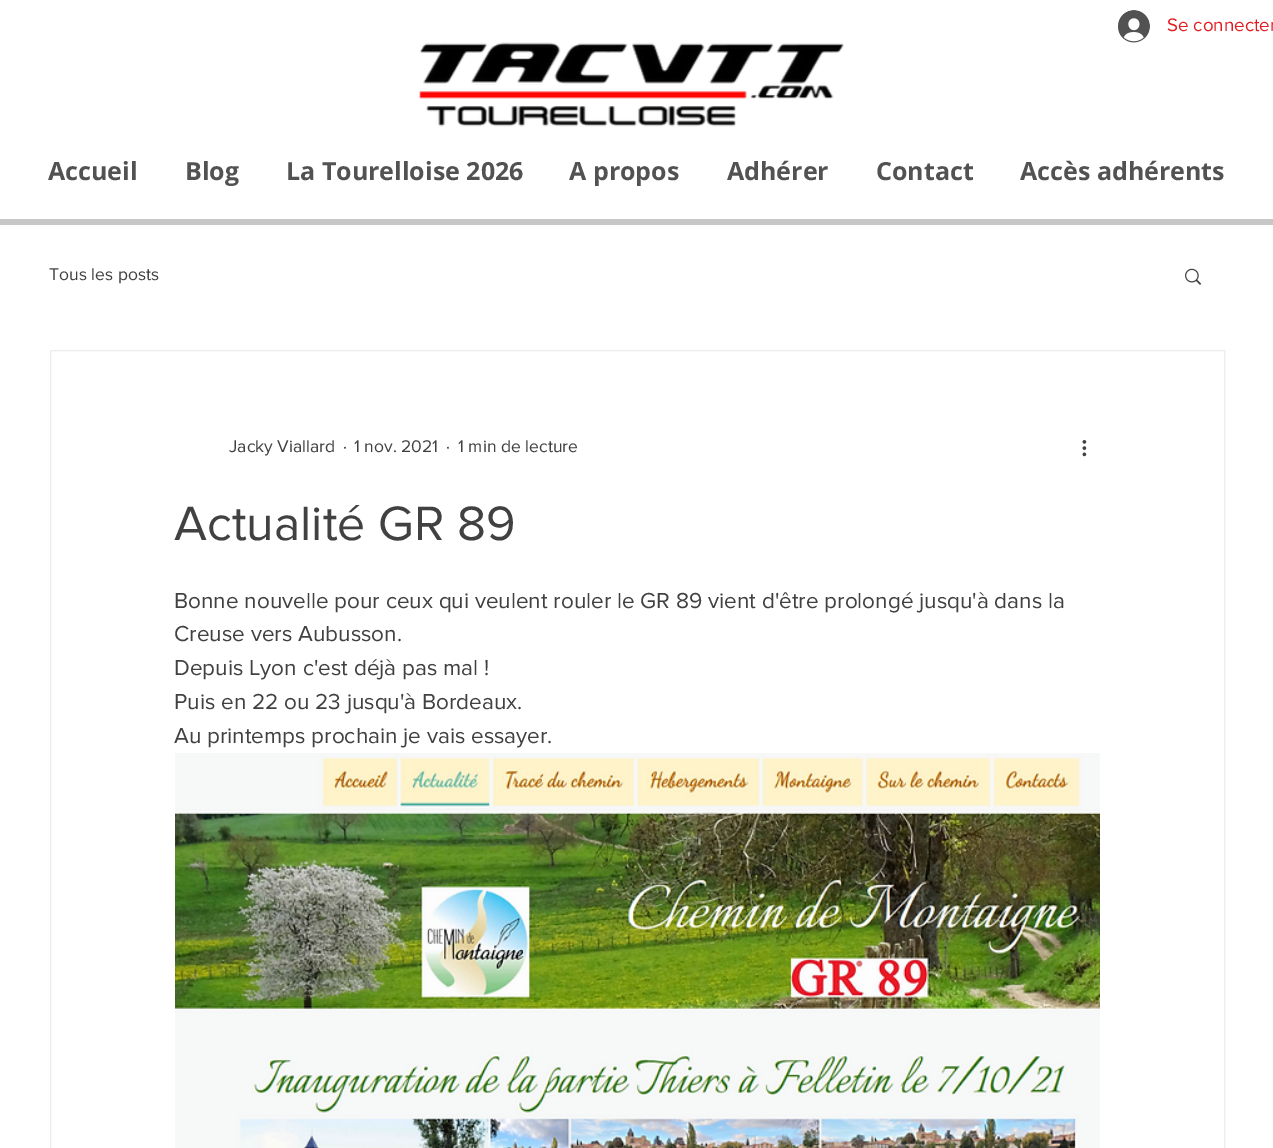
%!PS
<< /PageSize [1273 1148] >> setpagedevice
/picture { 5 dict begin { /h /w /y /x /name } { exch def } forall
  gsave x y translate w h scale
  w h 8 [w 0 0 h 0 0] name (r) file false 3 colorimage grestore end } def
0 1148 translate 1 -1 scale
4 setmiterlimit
1 setgray
0 0 1273 1148 rectfill
(img1.rgb) 1118 10 32 33 picture
/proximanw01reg-Regular [18.75 0 0 -18.75 0 0] selectfont
0.886 0.11 0.129 setrgbcolor
1167 31 moveto (Se connecter) show
(img2.rgb) 419 42 425 85 picture
/OpenSans-Bold [25 0 0 -25 0 0] selectfont
0.322 setgray
48 180 moveto (Accueil) show
185 180 moveto (Blog) show
286 180 moveto (La Tourelloise 2026) show
569 180 moveto (A propos) show
727 180 moveto (Adhérer) show
876 180 moveto (Contact) show
1020 180 moveto (Accès adhérents) show
0.78 setgray
0 219 1273 6 rectfill
/proximanw01reg-Regular [17.5 0 0 -17.5 0 0] selectfont
0.255 setgray
49 280 moveto (Tous les posts) show
(img3.rgb) 1185 268 17 17 picture
0.933 0.925 0.925 setrgbcolor
50.5 350.5 1174 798 rectstroke
0.255 setgray
229 452 moveto (Jacky Viallard) show
343 452 moveto (·) show
354 452 moveto (1 nov. 2021) show
446 452 moveto (·) show
458 452 moveto (1 min de lecture) show
(img4.rgb) 1082 440 5 17 picture
/proximanw01reg-Regular [50 0 0 -50 0 0] selectfont
174 540 moveto (Actualité GR 89) show
/proximanw01reg-Regular [22.5 0 0 -22.5 0 0] selectfont
174 608 moveto (Bonne nouvelle pour ceux qui veulent rouler le GR 89 vient d'être prolongé jusqu'à dans la) show
174 641 moveto (Creuse vers Aubusson.) show
174 675 moveto (Depuis Lyon c'est déjà pas mal !) show
174 709 moveto (Puis en 22 ou 23 jusqu'à Bordeaux.) show
174 743 moveto (Au printemps prochain je vais essayer.) show
(img5.rgb) 175 753 925 395 picture
showpage
